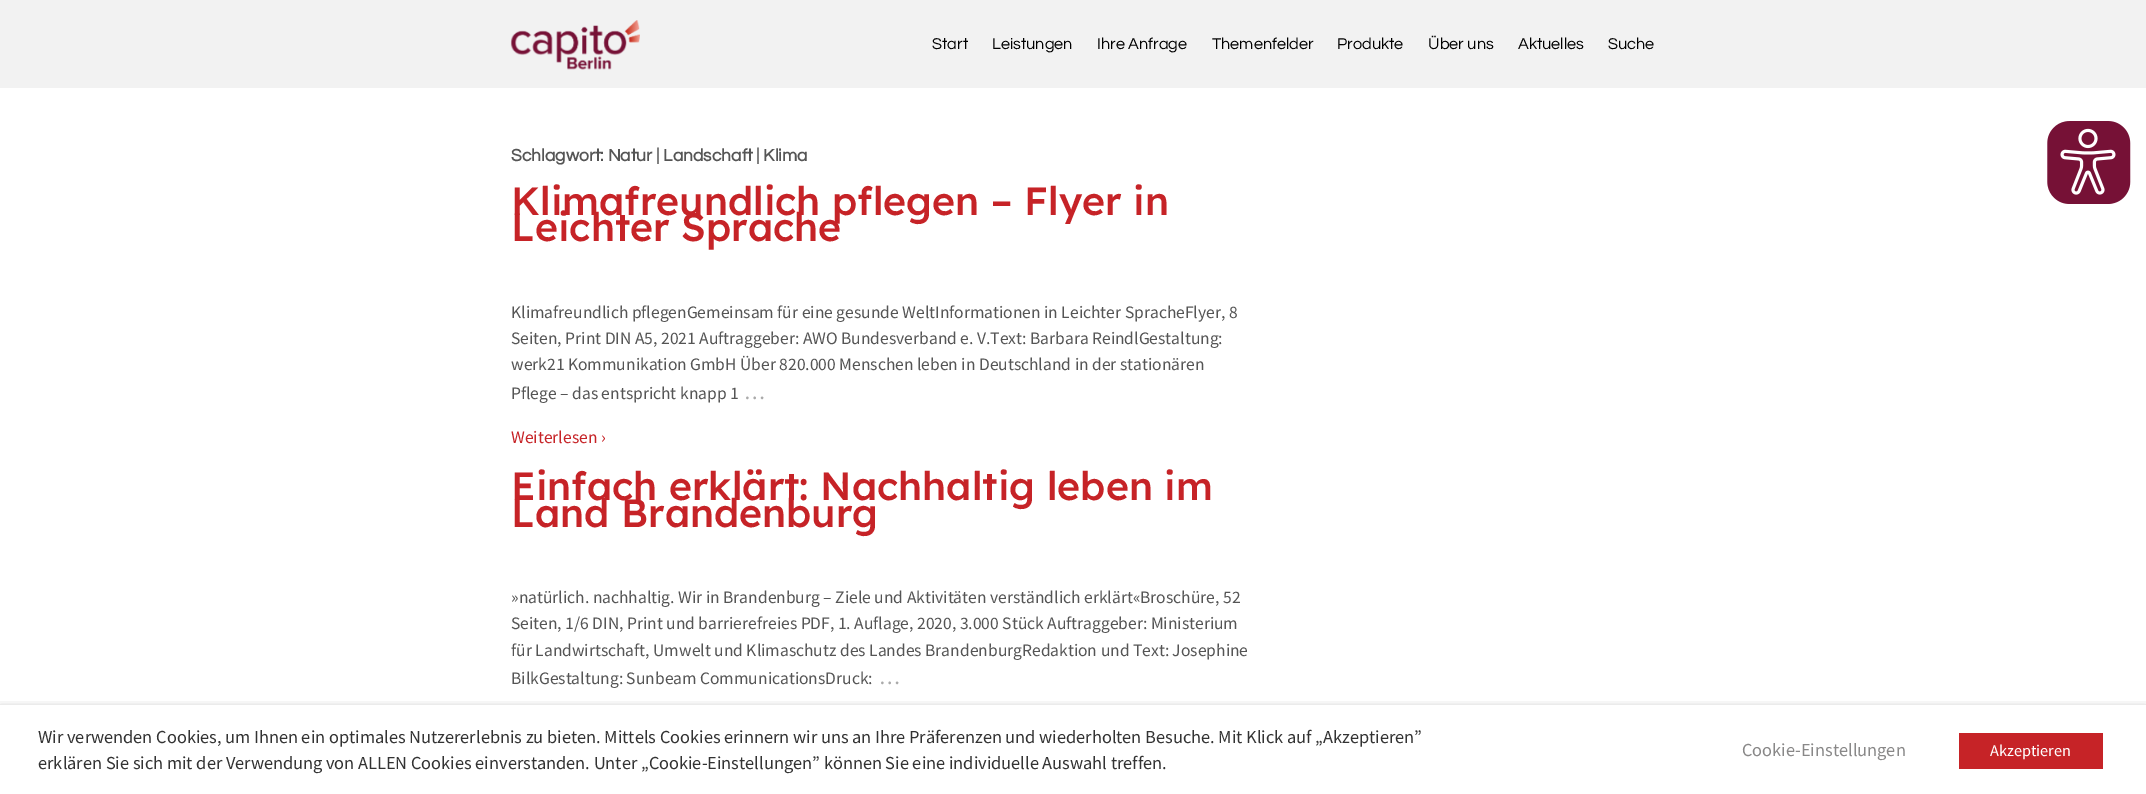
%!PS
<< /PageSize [2146 794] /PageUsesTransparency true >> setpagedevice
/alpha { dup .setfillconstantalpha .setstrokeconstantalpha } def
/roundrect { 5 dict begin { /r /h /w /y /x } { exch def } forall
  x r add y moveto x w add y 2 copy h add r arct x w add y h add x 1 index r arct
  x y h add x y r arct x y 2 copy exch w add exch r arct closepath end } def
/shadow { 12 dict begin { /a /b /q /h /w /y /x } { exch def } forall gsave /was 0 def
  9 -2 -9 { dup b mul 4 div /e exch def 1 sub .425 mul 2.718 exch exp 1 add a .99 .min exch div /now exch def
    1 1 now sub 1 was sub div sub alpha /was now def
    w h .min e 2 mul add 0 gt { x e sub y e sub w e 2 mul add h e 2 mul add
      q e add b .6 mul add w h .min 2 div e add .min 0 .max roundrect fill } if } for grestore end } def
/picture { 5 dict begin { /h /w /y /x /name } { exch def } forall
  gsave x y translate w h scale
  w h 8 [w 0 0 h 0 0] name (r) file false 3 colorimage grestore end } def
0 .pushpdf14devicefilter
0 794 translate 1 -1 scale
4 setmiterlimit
1 setgray
0 0 2146 794 rectfill
0.949 setgray
0 0 2146 88 rectfill
(img1.rgb) 510 20 130 50 picture
/Questrial-Regular [16.25 0 0 -16.25 0 0] selectfont
0 setgray
932 49 moveto (Start) show
992 49 moveto (Leistungen) show
1097 49 moveto (Ihre Anfrage) show
1212 49 moveto (Themenfelder) show
1337 49 moveto (Produkte) show
1428 49 moveto (Über uns) show
1518 49 moveto (Aktuelles) show
1608 49 moveto (Suche) show
/Questrial-Bold [17.5 0 0 -17.5 0 0] selectfont
0.333 setgray
511 161 moveto (Schlagwort: Natur | Landschaft | Klima) show
/Lexend-Medium [39.4 0 0 -39.4 0 0] selectfont
0.776 0.137 0.153 setrgbcolor
511 215 moveto (Klimafreundlich pflegen – Flyer in) show
511 241 moveto (Leichter Sprache) show
/SourceSansPro-Regular [17.5 0 0 -17.5 0 0] selectfont
0.333 setgray
511 318 moveto (Klimafreundlich pflegenGemeinsam für eine gesunde WeltInformationen in Leichter SpracheFlyer, 8) show
511 344 moveto (Seiten, Print DIN A5, 2021 Auftraggeber: AWO Bundesverband e. V.Text: Barbara ReindlGestaltung:) show
511 370 moveto (werk21 Kommunikation GmbH Über 820.000 Menschen leben in Deutschland in der stationären) show
511 399 moveto (Pflege – das entspricht knapp 1) show
/SourceSansPro-Regular [22 0 0 -22 0 0] selectfont
0.667 setgray
744 399 moveto (…) show
/SourceSansPro-Regular [17.5 0 0 -17.5 0 0] selectfont
0.776 0.137 0.153 setrgbcolor
511 443 moveto (Weiterlesen ›) show
/Lexend-Medium [39.4 0 0 -39.4 0 0] selectfont
511 500 moveto (Einfach erklärt: Nachhaltig leben im) show
511 527 moveto (Land Brandenburg) show
/SourceSansPro-Regular [17.5 0 0 -17.5 0 0] selectfont
0.333 setgray
511 603 moveto (»natürlich. nachhaltig. Wir in Brandenburg – Ziele und Aktivitäten verständlich erklärt«Broschüre, 52) show
511 629 moveto (Seiten, 1/6 DIN, Print und barrierefreies PDF, 1. Auflage, 2020, 3.000 Stück Auftraggeber: Ministerium) show
511 656 moveto (für Landwirtschaft, Umwelt und Klimaschutz des Landes BrandenburgRedaktion und Text: Josephine) show
511 684 moveto (BilkGestaltung: Sunbeam CommunicationsDruck:) show
/SourceSansPro-Regular [22 0 0 -22 0 0] selectfont
0.667 setgray
879 684 moveto (…) show
gsave
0 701 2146 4 rectclip
0 setgray
0 711 2146 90 0 6 0.5 shadow
grestore
/SourceSansPro-Regular [18.33 0 0 -18.33 0 0] selectfont
0.2 setgray
38 743 moveto (Wir verwenden Cookies, um Ihnen ein optimales Nutzererlebnis zu bieten. Mittels Cookies erinnern wir uns an Ihre Präferenzen und wiederholten Besuche. Mit Klick auf „Akzeptieren”) show
38 769 moveto (erklären Sie sich mit der Verwendung von ALLEN Cookies einverstanden. Unter „Cookie-Einstellungen” können Sie eine individuelle Auswahl treffen.) show
0.537 0.533 0.533 setrgbcolor
1742 756 moveto (Cookie-Einstellungen) show
0.776 0.137 0.153 setrgbcolor
1959 733 144 36 rectfill
/SourceSansPro-Regular [16.25 0 0 -16.25 0 0] selectfont
1 setgray
1990 756 moveto (Akzeptieren) show
(img2.rgb) 2047 121 84 83 picture
.poppdf14devicefilter showpage
